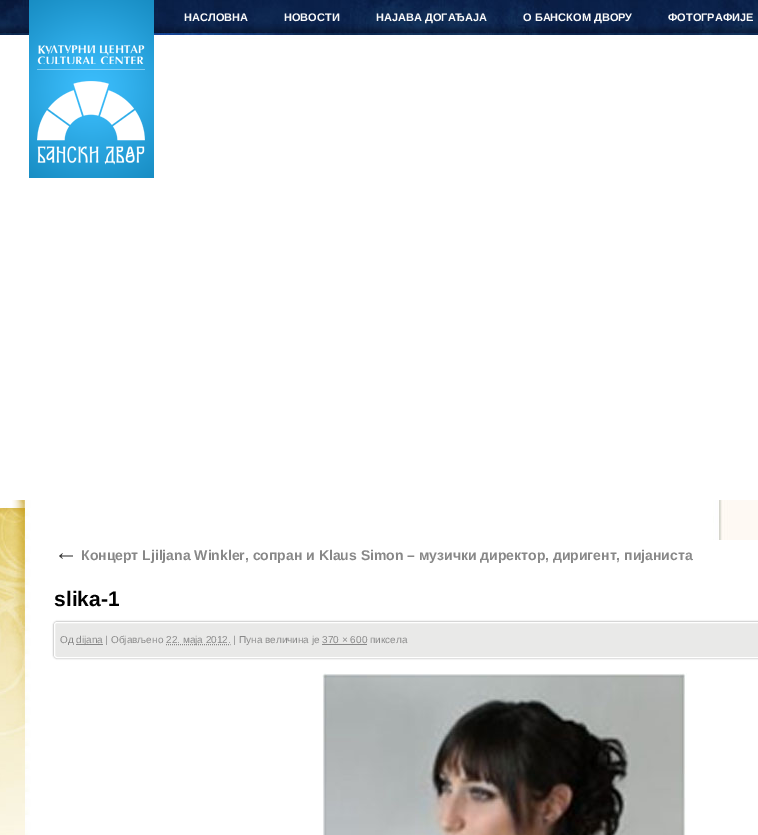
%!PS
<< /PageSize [758 835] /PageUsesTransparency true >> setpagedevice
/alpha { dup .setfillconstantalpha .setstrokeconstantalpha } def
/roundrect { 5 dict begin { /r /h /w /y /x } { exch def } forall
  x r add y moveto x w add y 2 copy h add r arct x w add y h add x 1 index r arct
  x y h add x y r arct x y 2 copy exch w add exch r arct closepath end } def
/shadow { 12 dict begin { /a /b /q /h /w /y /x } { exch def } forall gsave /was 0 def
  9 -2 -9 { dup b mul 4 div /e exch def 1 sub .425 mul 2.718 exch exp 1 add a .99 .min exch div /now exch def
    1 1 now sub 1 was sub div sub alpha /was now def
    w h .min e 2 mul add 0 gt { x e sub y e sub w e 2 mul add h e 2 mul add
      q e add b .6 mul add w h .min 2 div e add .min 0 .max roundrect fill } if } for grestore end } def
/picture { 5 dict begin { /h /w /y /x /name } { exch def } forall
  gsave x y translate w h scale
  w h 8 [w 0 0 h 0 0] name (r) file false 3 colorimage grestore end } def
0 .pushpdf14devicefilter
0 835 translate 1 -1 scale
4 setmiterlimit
1 setgray
0 0 758 835 rectfill
(img1.rgb) 0 0 758 835 picture
(img2.rgb) 29 0 125 178 picture
/LiberationSans-Bold [11 0 0 -11 0 0] selectfont
0.98 setgray
184 21 moveto (НАСЛОВНА) show
284 21 moveto (НОВОСТИ) show
376 21 moveto (НАЈАВА ДОГАЂАЈА) show
523 21 moveto (О БАНСКОМ ДВОРУ) show
668 21 moveto (ФОТОГРАФИЈЕ) show
(img3.rgb) 12 500 13 222 picture
(img4.rgb) 25 500 733 335 picture
1 setgray
713 540 45 295 rectfill
/LiberationSerif-Italic [24 0 0 -24 0 0] selectfont
0.2 setgray
54 560 moveto (←) show
/LiberationSans-Bold [14 0 0 -14 0 0] selectfont
0.533 setgray
81 560 moveto (Концерт Ljiljana Winkler, сопран и Klaus Simon – музички директор, диригент, пијаниста) show
/LiberationSans-Bold [21 0 0 -21 0 0] selectfont
0 setgray
54 606 moveto (slika-1) show
54 622 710 36 3 1 0.5 shadow
0.914 0.914 0.91 setrgbcolor
54.5 622.5 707 35 2.5 roundrect gsave fill grestore
1 setgray
stroke
/LiberationSans-Regular [10 0 0 -10 0 0] selectfont
0.533 setgray
60 643 moveto (Од) show
76 644 27 1 rectfill
76 643 moveto (dijana | Објављено) show
[1 1] 0 setdash
newpath 166 644.5 moveto 230.5 644.5 lineto stroke
166 643 moveto (22. маја 2012. | Пуна величина је 370 × 600 пиксела) show
322 644 45 1 rectfill
(img5.rgb) 322 673 365 162 picture
.poppdf14devicefilter showpage
